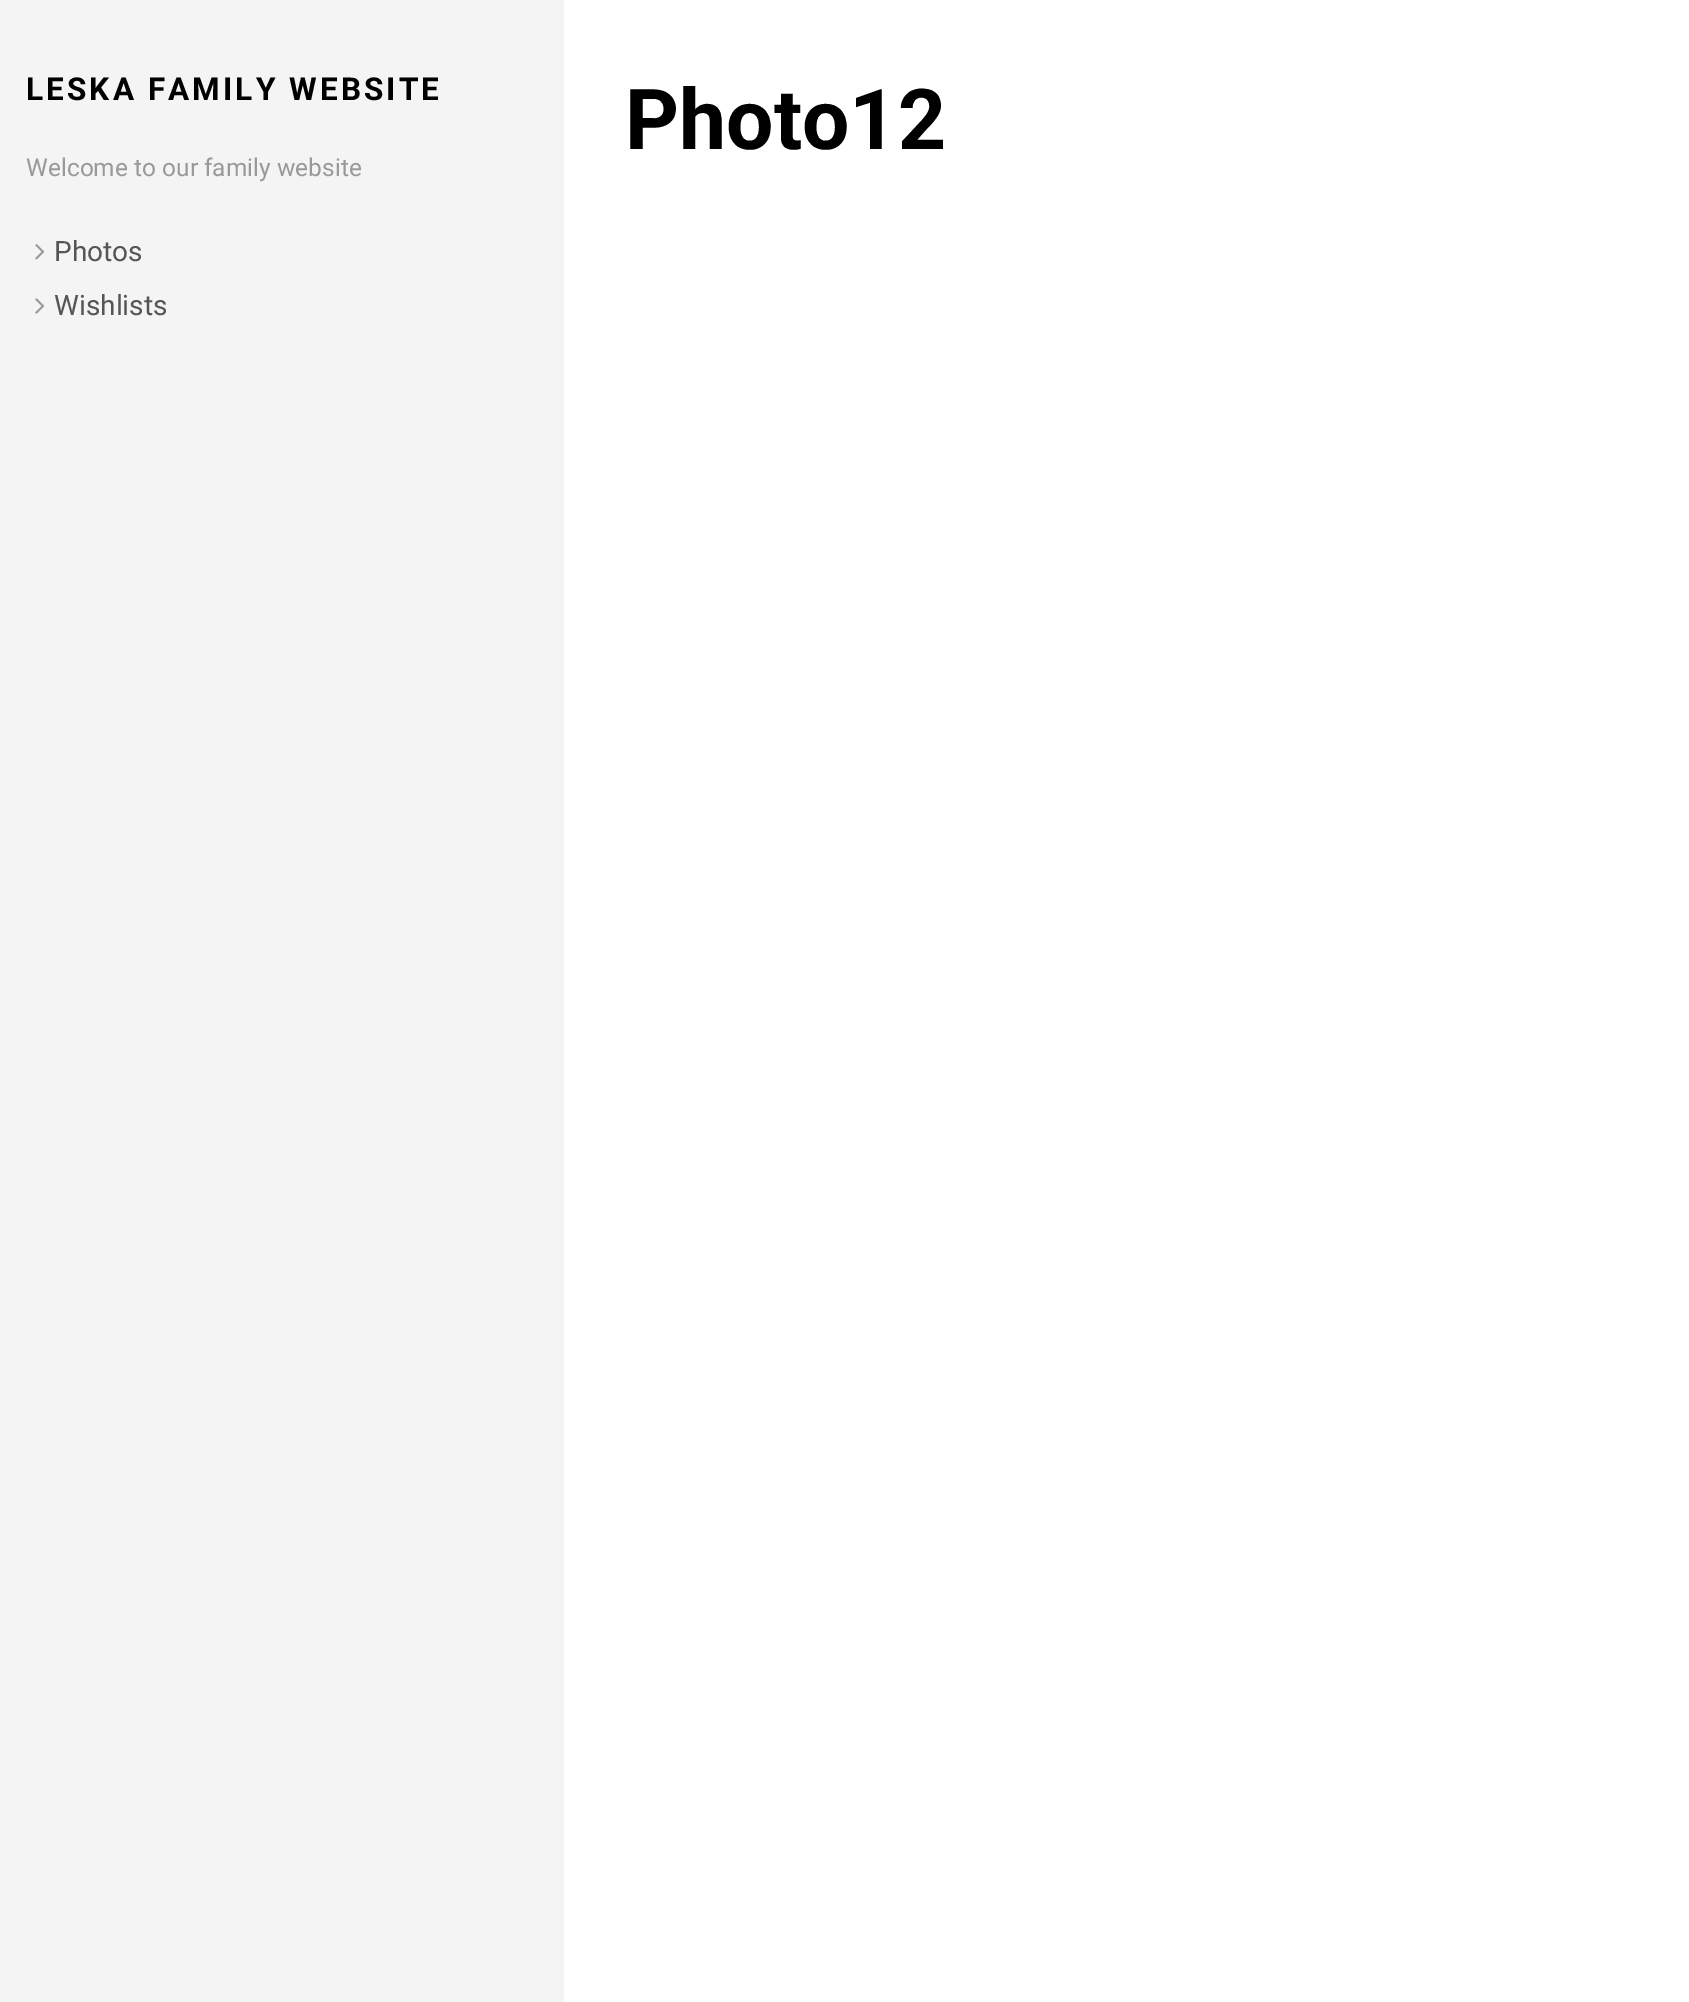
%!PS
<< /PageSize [1689 2002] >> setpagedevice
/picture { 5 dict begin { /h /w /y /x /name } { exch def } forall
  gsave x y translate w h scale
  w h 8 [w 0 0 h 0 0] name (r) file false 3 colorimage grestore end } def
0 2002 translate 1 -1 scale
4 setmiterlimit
0.957 setgray
0 0 1689 2002 rectfill
/Roboto-Bold [31.5 0 0 -31.5 0 0] selectfont
0 setgray
26 100 moveto 3.1 0 (LESKA FAMILY WEBSITE) ashow
/Roboto-Regular [24.5 0 0 -24.5 0 0] selectfont
0.6 setgray
26 176 moveto (Welcome to our family website) show
(img1.rgb) 35 244 10 16 picture
/Roboto-Regular [28 0 0 -28 0 0] selectfont
0.333 setgray
54 261 moveto (Photos) show
(img2.rgb) 35 298 10 16 picture
54 315 moveto (Wishlists) show
1 setgray
564 0 1125 2002 rectfill
/Roboto-Bold [84 0 0 -84 0 0] selectfont
0 setgray
625 149 moveto (Photo12) show
showpage
